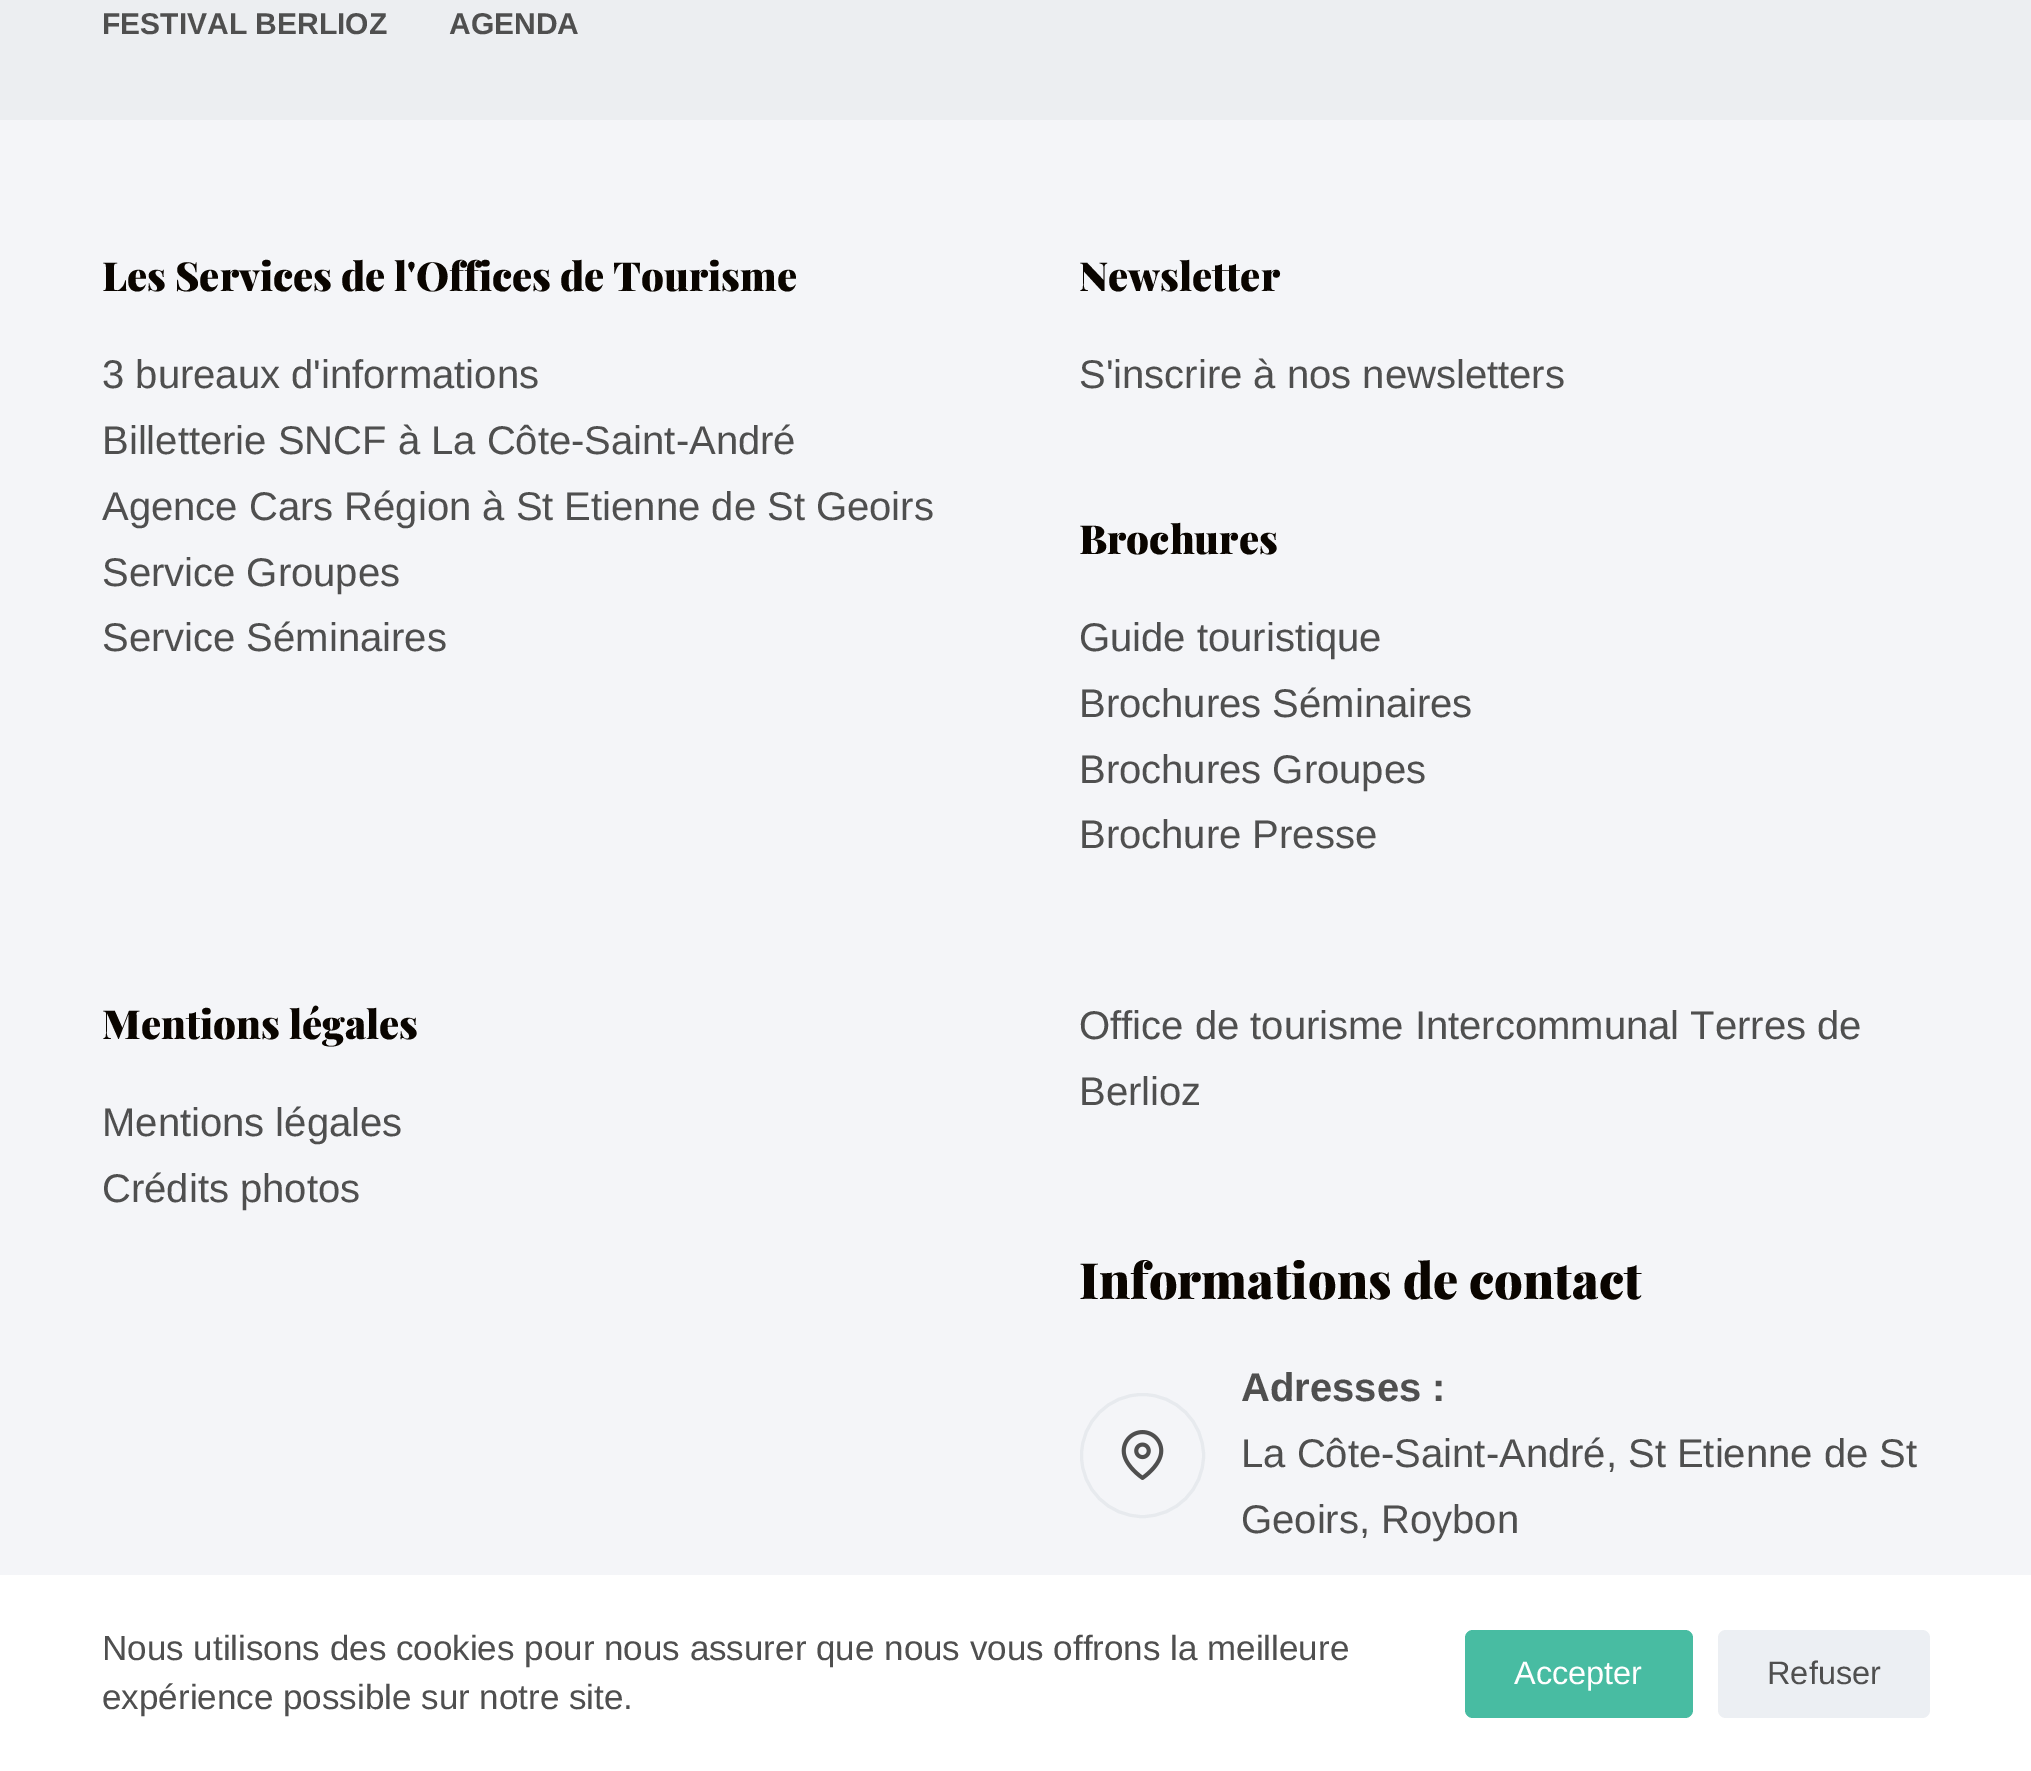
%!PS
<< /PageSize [2031 1771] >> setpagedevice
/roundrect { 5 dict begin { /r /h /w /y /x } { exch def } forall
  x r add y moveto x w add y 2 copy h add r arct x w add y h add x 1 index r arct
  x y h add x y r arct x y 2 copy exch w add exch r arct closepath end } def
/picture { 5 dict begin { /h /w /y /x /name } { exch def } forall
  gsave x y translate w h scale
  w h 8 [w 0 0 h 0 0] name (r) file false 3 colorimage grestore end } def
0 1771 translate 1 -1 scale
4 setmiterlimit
0.957 0.961 0.973 setrgbcolor
0 0 2031 1771 rectfill
0.925 0.933 0.945 setrgbcolor
0 0 2031 120 rectfill
/LiberationSans-Bold [30 0 0 -30 0 0] selectfont
0.31 setgray
102 34 moveto (FESTIVAL BERLIOZ) show
449 34 moveto (AGENDA) show
/PlayfairDisplay-Black [40 0 0 -40 0 0] selectfont
0.039 0.02 0 setrgbcolor
102 291 moveto (Les Services de l'Offices de Tourisme) show
/LiberationSans-Regular [40 0 0 -40 0 0] selectfont
0.31 setgray
102 388 moveto (3 bureaux d'informations) show
102 454 moveto (Billetterie SNCF à La Côte-Saint-André) show
102 520 moveto (Agence Cars Région à St Etienne de St Geoirs) show
102 586 moveto (Service Groupes) show
102 651 moveto (Service Séminaires) show
/PlayfairDisplay-Black [40 0 0 -40 0 0] selectfont
0.039 0.02 0 setrgbcolor
1079 291 moveto (Newsletter) show
/LiberationSans-Regular [40 0 0 -40 0 0] selectfont
0.31 setgray
1079 388 moveto (S'inscrire à nos newsletters) show
/PlayfairDisplay-Black [40 0 0 -40 0 0] selectfont
0.039 0.02 0 setrgbcolor
1079 554 moveto (Brochures) show
/LiberationSans-Regular [40 0 0 -40 0 0] selectfont
0.31 setgray
1079 651 moveto (Guide touristique) show
1079 717 moveto (Brochures Séminaires) show
1079 783 moveto (Brochures Groupes) show
1079 848 moveto (Brochure Presse) show
/PlayfairDisplay-Black [40 0 0 -40 0 0] selectfont
0.039 0.02 0 setrgbcolor
102 1039 moveto (Mentions légales) show
/LiberationSans-Regular [40 0 0 -40 0 0] selectfont
0.31 setgray
102 1136 moveto (Mentions légales) show
102 1202 moveto (Crédits photos) show
1079 1039 moveto (Office de tourisme Intercommunal Terres de) show
1079 1105 moveto (Berlioz) show
/PlayfairDisplay-Black [50 0 0 -50 0 0] selectfont
0.039 0.02 0 setrgbcolor
1079 1299 moveto (Informations de contact) show
0.906 0.918 0.933 setrgbcolor
3 setlinewidth
newpath 1142.5 1455.5 61 0 360 arc closepath stroke
(img1.rgb) 1121 1430 43 50 picture
/LiberationSans-Bold [40 0 0 -40 0 0] selectfont
0.31 setgray
1241 1401 moveto (Adresses :) show
/LiberationSans-Regular [40 0 0 -40 0 0] selectfont
1241 1467 moveto (La Côte-Saint-André, St Etienne de St) show
1241 1533 moveto (Geoirs, Roybon) show
1 setgray
0 1575 2031 196 rectfill
/LiberationSans-Regular [35 0 0 -35 0 0] selectfont
0.31 setgray
102 1660 moveto (Nous utilisons des cookies pour nous assurer que nous vous offrons la meilleure) show
102 1709 moveto (expérience possible sur notre site.) show
0.282 0.737 0.635 setrgbcolor
1465 1630 228 88 8 roundrect fill
/LiberationSans-Regular [32.5 0 0 -32.5 0 0] selectfont
1 setgray
1514 1684 moveto (Accepter) show
0.925 0.937 0.953 setrgbcolor
1718 1630 212 88 8 roundrect fill
0.31 setgray
1767 1684 moveto (Refuser) show
showpage
